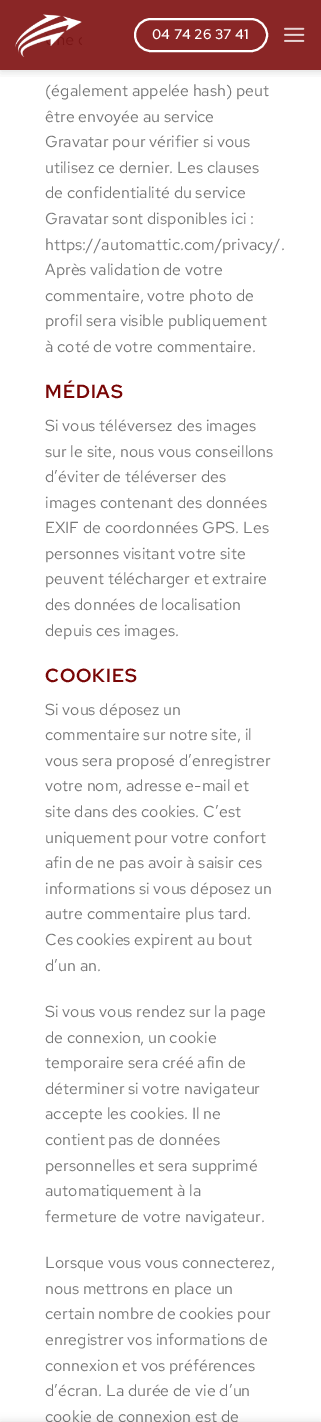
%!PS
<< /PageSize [321 1422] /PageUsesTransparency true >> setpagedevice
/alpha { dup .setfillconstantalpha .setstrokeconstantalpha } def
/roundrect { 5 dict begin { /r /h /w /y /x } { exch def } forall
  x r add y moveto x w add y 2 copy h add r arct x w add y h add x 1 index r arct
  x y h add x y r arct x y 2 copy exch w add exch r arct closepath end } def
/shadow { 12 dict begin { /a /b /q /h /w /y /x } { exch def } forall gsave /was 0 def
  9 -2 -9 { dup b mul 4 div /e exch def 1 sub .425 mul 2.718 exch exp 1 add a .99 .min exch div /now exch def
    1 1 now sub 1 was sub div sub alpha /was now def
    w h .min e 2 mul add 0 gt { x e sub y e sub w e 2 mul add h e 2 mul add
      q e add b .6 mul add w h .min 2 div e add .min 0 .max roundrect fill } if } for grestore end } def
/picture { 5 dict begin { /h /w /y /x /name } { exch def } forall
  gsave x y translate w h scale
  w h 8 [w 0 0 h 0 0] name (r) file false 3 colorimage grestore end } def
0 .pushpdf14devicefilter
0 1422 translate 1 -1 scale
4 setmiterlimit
1 setgray
0 0 321 1422 rectfill
gsave
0 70 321 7 rectclip
0 setgray
1 1 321 70 0 5 0.15 shadow
grestore
0.87 alpha
0.475 0.024 0.024 setrgbcolor
0 0 321 70 rectfill
1 alpha
(img1.rgb) 15 14 67 43 picture
1 setgray
2 setlinewidth
135 19 132 32 16 roundrect stroke
/RedHatText-Bold [13.5 0 0 -13.5 0 0] selectfont
152 39 moveto 0.4 0 (04 74 26 37 41) ashow
(img2.rgb) 284 27 21 15 picture
/RedHatText-Regular [16 0 0 -16 0 0] selectfont
0.467 setgray
45 96 moveto (\(également appelée hash\) peut) show
45 122 moveto (être envoyée au service) show
45 147 moveto (Gravatar pour vérifier si vous) show
45 173 moveto (utilisez ce dernier. Les clauses) show
45 198 moveto (de confidentialité du service) show
45 224 moveto (Gravatar sont disponibles ici :) show
45 250 moveto (https://automattic.com/privacy/.) show
45 275 moveto (Après validation de votre) show
45 301 moveto (commentaire, votre photo de) show
45 326 moveto (profil sera visible publiquement) show
45 352 moveto (à coté de votre commentaire.) show
/RedHatDisplay-Bold [19 0 0 -19 0 0] selectfont
0.475 0.024 0.024 setrgbcolor
45 398 moveto 1 0 (MÉDIAS) ashow
/RedHatText-Regular [16 0 0 -16 0 0] selectfont
0.467 setgray
45 431 moveto (Si vous téléversez des images) show
45 457 moveto (sur le site, nous vous conseillons) show
45 482 moveto (d’éviter de téléverser des) show
45 508 moveto (images contenant des données) show
45 533 moveto (EXIF de coordonnées GPS. Les) show
45 559 moveto (personnes visitant votre site) show
45 584 moveto (peuvent télécharger et extraire) show
45 610 moveto (des données de localisation) show
45 636 moveto (depuis ces images.) show
/RedHatDisplay-Bold [19 0 0 -19 0 0] selectfont
0.475 0.024 0.024 setrgbcolor
45 682 moveto 1 0 (COOKIES) ashow
/RedHatText-Regular [16 0 0 -16 0 0] selectfont
0.467 setgray
45 715 moveto (Si vous déposez un) show
45 740 moveto (commentaire sur notre site, il) show
45 766 moveto (vous sera proposé d’enregistrer) show
45 791 moveto (votre nom, adresse e-mail et) show
45 817 moveto (site dans des cookies. C’est) show
45 843 moveto (uniquement pour votre confort) show
45 868 moveto (afin de ne pas avoir à saisir ces) show
45 894 moveto (informations si vous déposez un) show
45 919 moveto (autre commentaire plus tard.) show
45 945 moveto (Ces cookies expirent au bout) show
45 971 moveto (d’un an.) show
45 1017 moveto (Si vous vous rendez sur la page) show
45 1043 moveto (de connexion, un cookie) show
45 1068 moveto (temporaire sera créé afin de) show
45 1094 moveto (déterminer si votre navigateur) show
45 1119 moveto (accepte les cookies. Il ne) show
45 1145 moveto (contient pas de données) show
45 1171 moveto (personnelles et sera supprimé) show
45 1196 moveto (automatiquement à la) show
45 1222 moveto (fermeture de votre navigateur.) show
45 1268 moveto (Lorsque vous vous connecterez,) show
45 1294 moveto (nous mettrons en place un) show
45 1319 moveto (certain nombre de cookies pour) show
45 1345 moveto (enregistrer vos informations de) show
45 1371 moveto (connexion et vos préférences) show
45 1396 moveto (d’écran. La durée de vie d’un) show
45 1422 moveto (cookie de connexion est de) show
0 setgray
0 1422 321 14 0 4.5 0.14 shadow
.poppdf14devicefilter showpage
